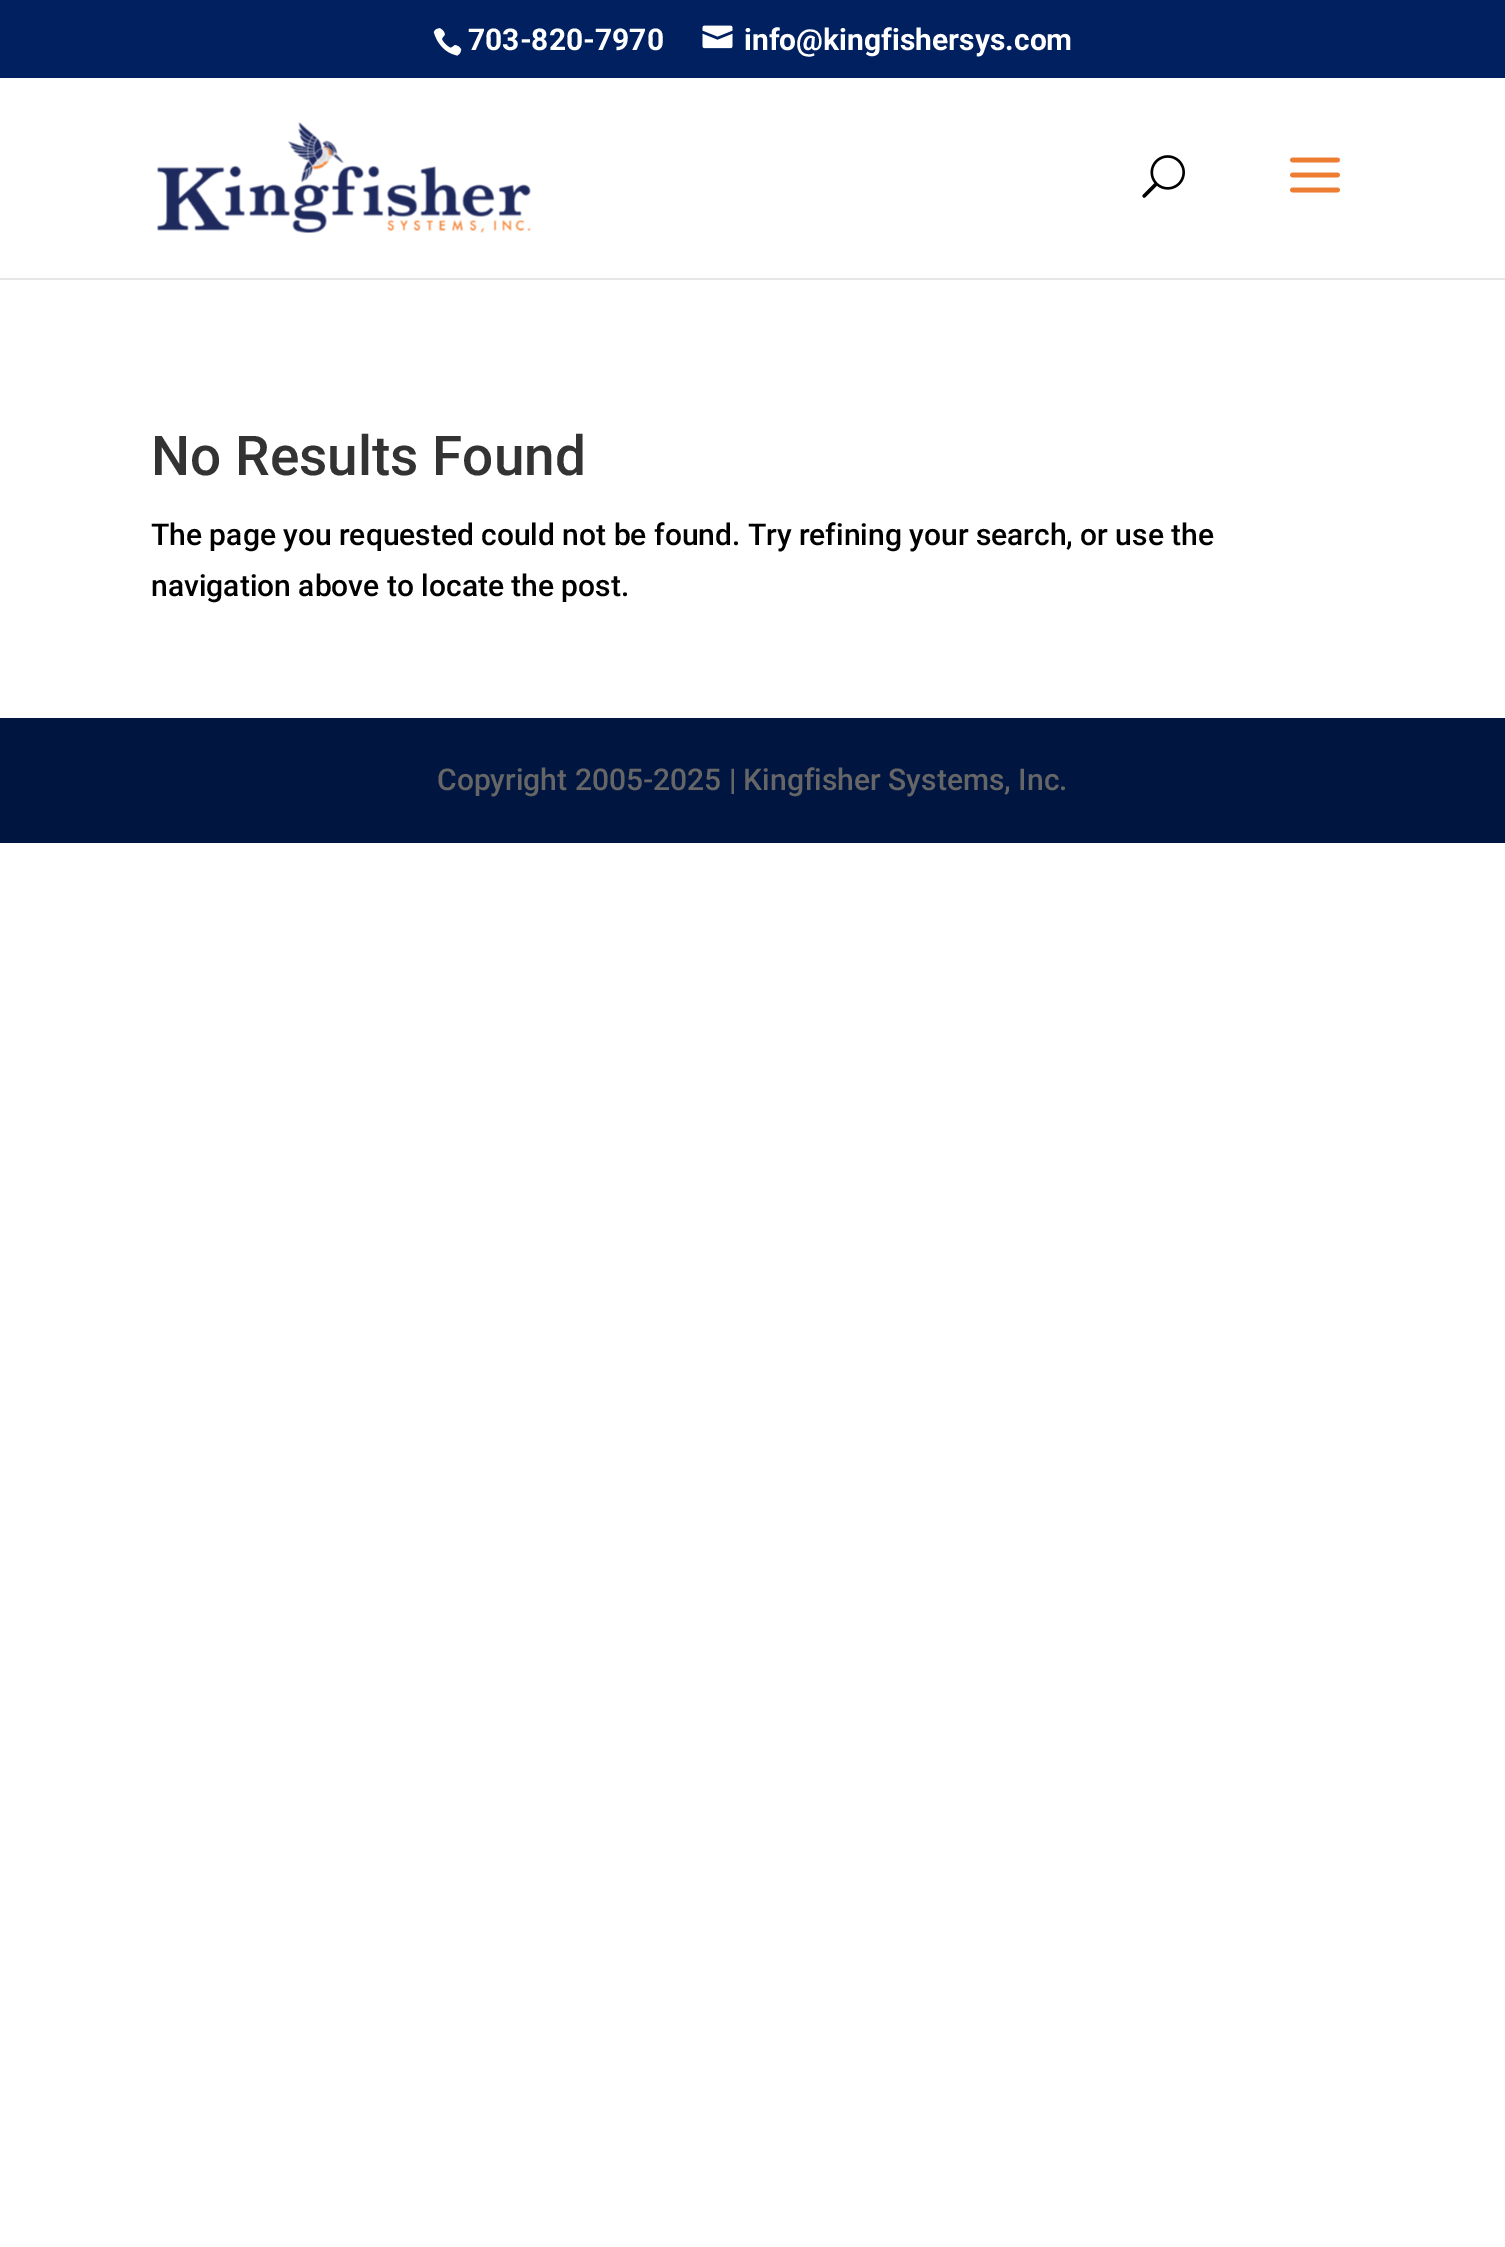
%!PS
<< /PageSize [1505 2247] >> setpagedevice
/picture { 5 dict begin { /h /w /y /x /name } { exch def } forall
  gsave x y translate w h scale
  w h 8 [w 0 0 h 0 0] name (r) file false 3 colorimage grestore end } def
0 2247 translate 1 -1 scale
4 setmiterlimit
1 setgray
0 0 1505 2247 rectfill
0 0.125 0.376 setrgbcolor
0 0 1505 78 rectfill
(img1.rgb) 433 28 29 28 picture
/Roboto-Bold [30 0 0 -30 0 0] selectfont
1 setgray
468 50 moveto (703-820-7970) show
(img2.rgb) 702 25 31 24 picture
744 50 moveto (info@kingfishersys.com) show
0.902 setgray
0 278 1505 2 rectfill
(img3.rgb) 157 122 374 111 picture
(img4.rgb) 1142 155 43 43 picture
(img5.rgb) 1290 157 50 36 picture
/Roboto-Medium [55 0 0 -55 0 0] selectfont
0.2 setgray
151 475 moveto (No Results Found) show
/Roboto-Medium [30 0 0 -30 0 0] selectfont
0 setgray
151 545 moveto (The page you requested could not be found. Try refining your search, or use the) show
151 596 moveto (navigation above to locate the post.) show
0 0.086 0.255 setrgbcolor
0 718 1505 125 rectfill
0.4 setgray
437 790 moveto (Copyright 2005-2025 | Kingfisher Systems, Inc.) show
showpage
